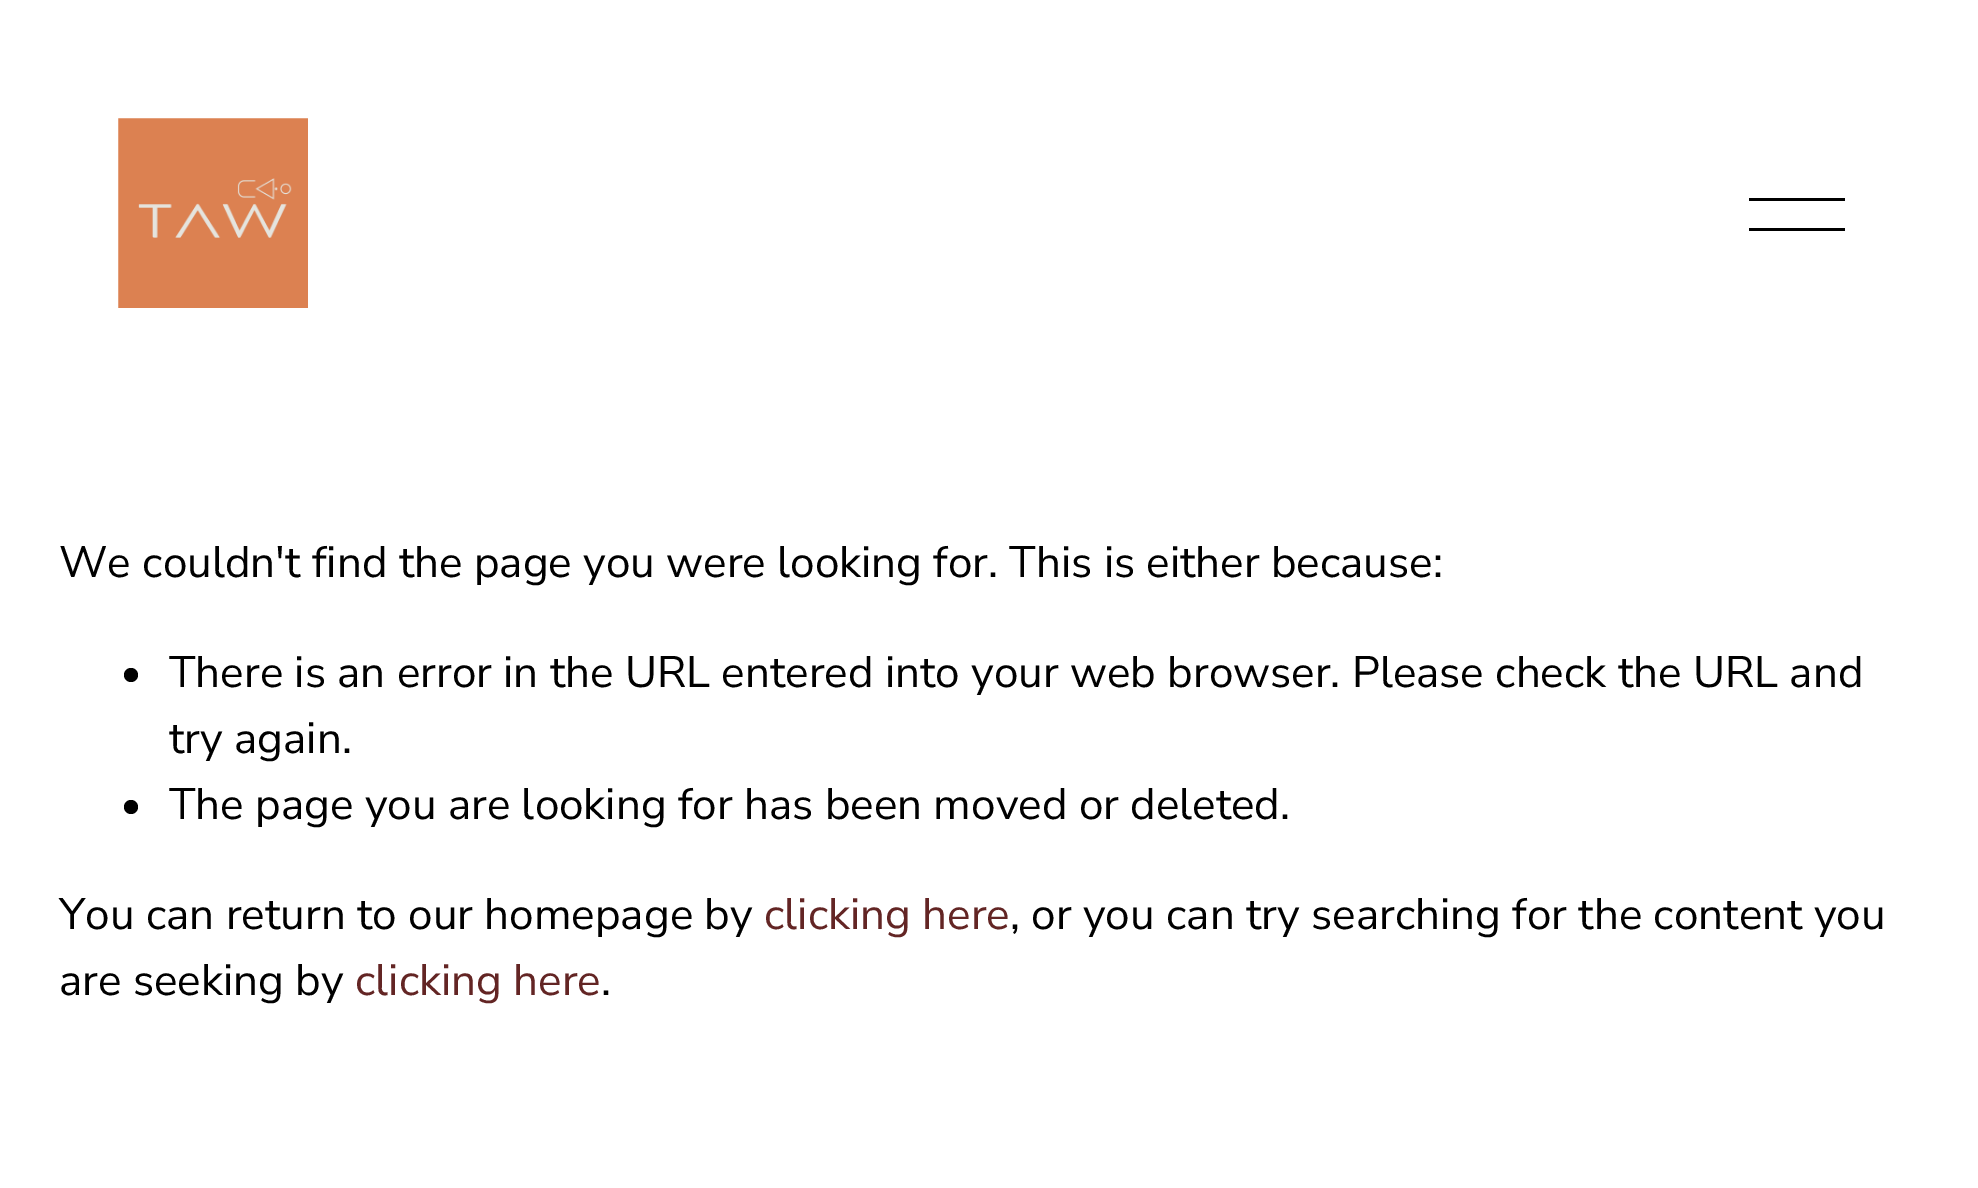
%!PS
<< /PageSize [1978 1188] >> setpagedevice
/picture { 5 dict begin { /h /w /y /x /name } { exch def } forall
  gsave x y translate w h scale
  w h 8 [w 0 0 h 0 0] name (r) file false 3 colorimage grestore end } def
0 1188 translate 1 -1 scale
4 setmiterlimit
1 setgray
0 0 1978 1188 rectfill
(img1.rgb) 118 118 190 190 picture
0 setgray
1749 198 96 3 rectfill
1749 228 96 3 rectfill
/NunitoSans-Regular [44 0 0 -44 0 0] selectfont
59 577 moveto (We couldn't find the page you were looking for. This is either because:) show
newpath 131 675 7 0 360 arc closepath fill
169 687 moveto (There is an error in the URL entered into your web browser. Please check the URL and) show
169 753 moveto (try again.) show
newpath 131 807 7 0 360 arc closepath fill
169 819 moveto (The page you are looking for has been moved or deleted.) show
59 929 moveto (You can return to our homepage by) show
0.388 0.145 0.141 setrgbcolor
764 929 moveto (clicking here) show
0 setgray
1010 929 moveto (, or you can try searching for the content you) show
59 995 moveto (are seeking by) show
0.388 0.145 0.141 setrgbcolor
355 995 moveto (clicking here) show
0 setgray
601 995 moveto (.) show
showpage
